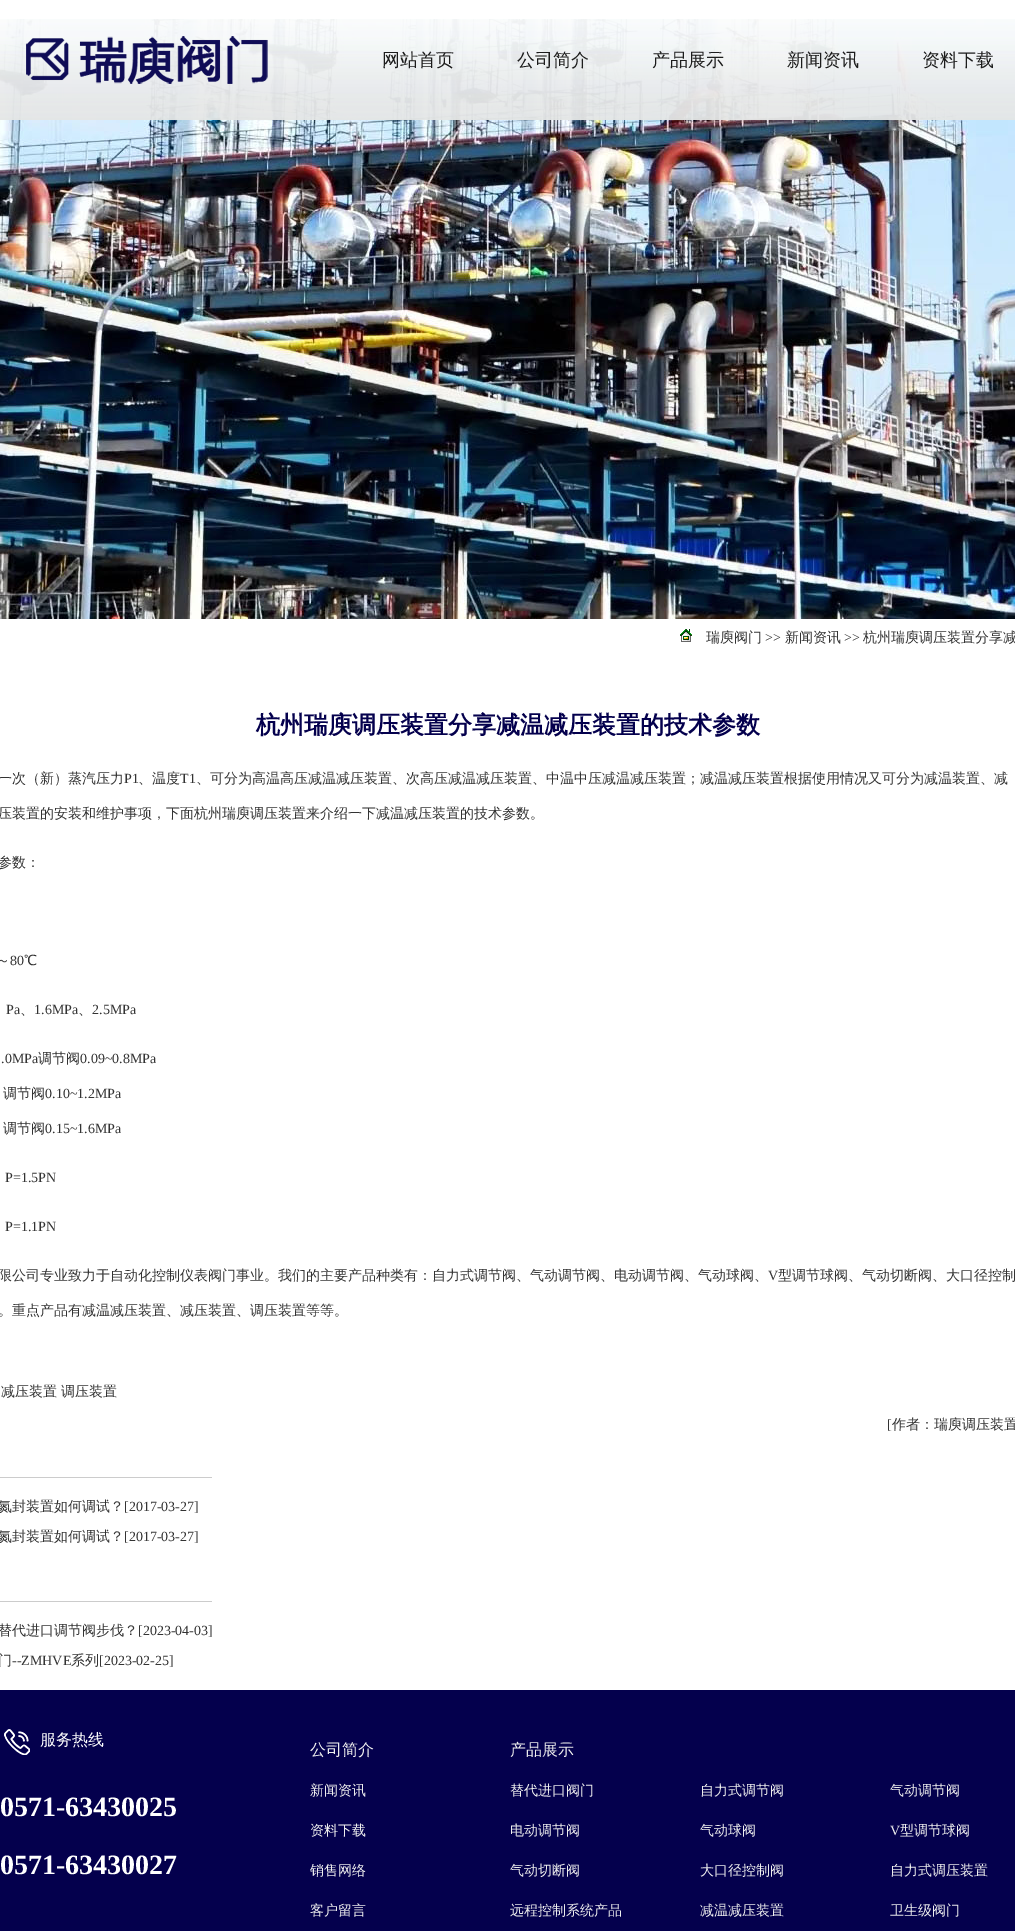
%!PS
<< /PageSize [1015 1931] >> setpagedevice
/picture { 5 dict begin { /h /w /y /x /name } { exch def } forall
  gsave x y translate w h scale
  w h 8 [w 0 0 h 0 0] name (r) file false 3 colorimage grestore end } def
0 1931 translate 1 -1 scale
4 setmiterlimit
1 setgray
0 0 1015 1931 rectfill
(img1.rgb) 0 19 1015 600 picture
(img2.rgb) 0 19 1015 101 picture
(img3.rgb) 26 36 242 48 picture
/WenQuanYiZenHei-Medium [18 0 0 -18 0 0] selectfont
0.11 setgray
382 66 moveto (网站首页) show
517 66 moveto (公司简介) show
652 66 moveto (产品展示) show
787 66 moveto (新闻资讯) show
922 66 moveto (资料下载) show
(img4.rgb) 680 629 12 13 picture
/WenQuanYiZenHei-Medium [14 0 0 -14 0 0] selectfont
0.2 setgray
706 642 moveto (瑞庾阀门) show
/LiberationSerif-Regular [14 0 0 -14 0 0] selectfont
765 642 moveto (>>) show
/WenQuanYiZenHei-Medium [14 0 0 -14 0 0] selectfont
785 642 moveto (新闻资讯) show
/LiberationSerif-Regular [14 0 0 -14 0 0] selectfont
844 642 moveto (>>) show
/WenQuanYiZenHei-Medium [14 0 0 -14 0 0] selectfont
863 642 moveto (杭州瑞庾调压装置分享减) show
/WenQuanYiZenHei-Bold [24 0 0 -24 0 0] selectfont
0.016 0 0.302 setrgbcolor
256 733 moveto (杭州瑞庾调压装置分享减温减压装置的技术参数) show
/WenQuanYiZenHei-Medium [14 0 0 -14 0 0] selectfont
0.2 setgray
-2 783 moveto (一次（新）蒸汽压力) show
/LiberationSerif-Regular [14 0 0 -14 0 0] selectfont
124 783 moveto (P1) show
/WenQuanYiZenHei-Medium [14 0 0 -14 0 0] selectfont
138 783 moveto (、温度) show
/LiberationSerif-Regular [14 0 0 -14 0 0] selectfont
180 783 moveto (T1) show
/WenQuanYiZenHei-Medium [14 0 0 -14 0 0] selectfont
196 783 moveto (、可分为高温高压减温减压装置、次高压减温减压装置、中温中压减温减压装置；减温减压装置根据使用情况又可分为减温装置、减) show
-2 818 moveto (压装置的安装和维护事项，下面杭州瑞庾调压装置来介绍一下减温减压装置的技术参数。) show
-2 867 moveto (参数：) show
-4 965 moveto (～) show
/LiberationSerif-Regular [14 0 0 -14 0 0] selectfont
10 965 moveto (80) show
/WenQuanYiZenHei-Medium [14 0 0 -14 0 0] selectfont
24 965 moveto (℃) show
/LiberationSerif-Regular [14 0 0 -14 0 0] selectfont
6 1014 moveto (Pa) show
/WenQuanYiZenHei-Medium [14 0 0 -14 0 0] selectfont
20 1014 moveto (、) show
/LiberationSerif-Regular [14 0 0 -14 0 0] selectfont
34 1014 moveto (1.6MPa) show
/WenQuanYiZenHei-Medium [14 0 0 -14 0 0] selectfont
78 1014 moveto (、) show
/LiberationSerif-Regular [14 0 0 -14 0 0] selectfont
92 1014 moveto (2.5MPa) show
1 1063 moveto (.0MPa) show
/WenQuanYiZenHei-Medium [14 0 0 -14 0 0] selectfont
38 1063 moveto (调节阀) show
/LiberationSerif-Regular [14 0 0 -14 0 0] selectfont
80 1063 moveto (0.09~0.8MPa) show
/WenQuanYiZenHei-Medium [14 0 0 -14 0 0] selectfont
3 1098 moveto (调节阀) show
/LiberationSerif-Regular [14 0 0 -14 0 0] selectfont
45 1098 moveto (0.10~1.2MPa) show
/WenQuanYiZenHei-Medium [14 0 0 -14 0 0] selectfont
3 1133 moveto (调节阀) show
/LiberationSerif-Regular [14 0 0 -14 0 0] selectfont
45 1133 moveto (0.15~1.6MPa) show
5 1182 moveto (P=1.5PN) show
5 1231 moveto (P=1.1PN) show
/WenQuanYiZenHei-Medium [14 0 0 -14 0 0] selectfont
-2 1280 moveto (限公司专业致力于自动化控制仪表阀门事业。我们的主要产品种类有：自力式调节阀、气动调节阀、电动调节阀、气动球阀、) show
/LiberationSerif-Regular [14 0 0 -14 0 0] selectfont
768 1280 moveto (V) show
/WenQuanYiZenHei-Medium [14 0 0 -14 0 0] selectfont
778 1280 moveto (型调节球阀、气动切断阀、大口径控制) show
-2 1315 moveto (。重点产品有减温减压装置、减压装置、调压装置等等。) show
1 1396 moveto (减压装置) show
61 1396 moveto (调压装置) show
/LiberationSerif-Regular [14 0 0 -14 0 0] selectfont
887 1429 moveto ([) show
/WenQuanYiZenHei-Medium [14 0 0 -14 0 0] selectfont
892 1429 moveto (作者：瑞庾调压装置) show
0.8 setgray
0 1477 212 1 rectfill
0.2 setgray
-2 1511 moveto (氮封装置如何调试？) show
/LiberationSerif-Regular [14 0 0 -14 0 0] selectfont
124 1511 moveto ([2017-03-27]) show
/WenQuanYiZenHei-Medium [14 0 0 -14 0 0] selectfont
-2 1541 moveto (氮封装置如何调试？) show
/LiberationSerif-Regular [14 0 0 -14 0 0] selectfont
124 1541 moveto ([2017-03-27]) show
0.8 setgray
0 1601 212 1 rectfill
/WenQuanYiZenHei-Medium [14 0 0 -14 0 0] selectfont
0.2 setgray
-2 1635 moveto (替代进口调节阀步伐？) show
/LiberationSerif-Regular [14 0 0 -14 0 0] selectfont
138 1635 moveto ([2023-04-03]) show
/WenQuanYiZenHei-Medium [14 0 0 -14 0 0] selectfont
-2 1665 moveto (门) show
/LiberationSerif-Regular [14 0 0 -14 0 0] selectfont
12 1665 moveto (--ZMHVE) show
/WenQuanYiZenHei-Medium [14 0 0 -14 0 0] selectfont
71 1665 moveto (系列) show
/LiberationSerif-Regular [14 0 0 -14 0 0] selectfont
99 1665 moveto ([2023-02-25]) show
0.016 0 0.302 setrgbcolor
0 1690 1015 241 rectfill
(img5.rgb) 4 1729 26 26 picture
/WenQuanYiZenHei-Medium [16 0 0 -16 0 0] selectfont
1 setgray
40 1745 moveto (服务热线) show
/LiberationSerif-Bold [28 0 0 -28 0 0] selectfont
0 1816 moveto (0571-63430025) show
0 1874 moveto (0571-63430027) show
/WenQuanYiZenHei-Medium [16 0 0 -16 0 0] selectfont
0.933 setgray
310 1755 moveto (公司简介) show
/WenQuanYiZenHei-Medium [14 0 0 -14 0 0] selectfont
310 1795 moveto (新闻资讯) show
310 1835 moveto (资料下载) show
310 1875 moveto (销售网络) show
310 1915 moveto (客户留言) show
/WenQuanYiZenHei-Medium [16 0 0 -16 0 0] selectfont
510 1755 moveto (产品展示) show
/WenQuanYiZenHei-Medium [14 0 0 -14 0 0] selectfont
510 1795 moveto (替代进口阀门) show
700 1795 moveto (自力式调节阀) show
890 1795 moveto (气动调节阀) show
510 1835 moveto (电动调节阀) show
700 1835 moveto (气动球阀) show
/LiberationSerif-Regular [14 0 0 -14 0 0] selectfont
890 1835 moveto (V) show
/WenQuanYiZenHei-Medium [14 0 0 -14 0 0] selectfont
900 1835 moveto (型调节球阀) show
510 1875 moveto (气动切断阀) show
700 1875 moveto (大口径控制阀) show
890 1875 moveto (自力式调压装置) show
510 1915 moveto (远程控制系统产品) show
700 1915 moveto (减温减压装置) show
890 1915 moveto (卫生级阀门) show
showpage
